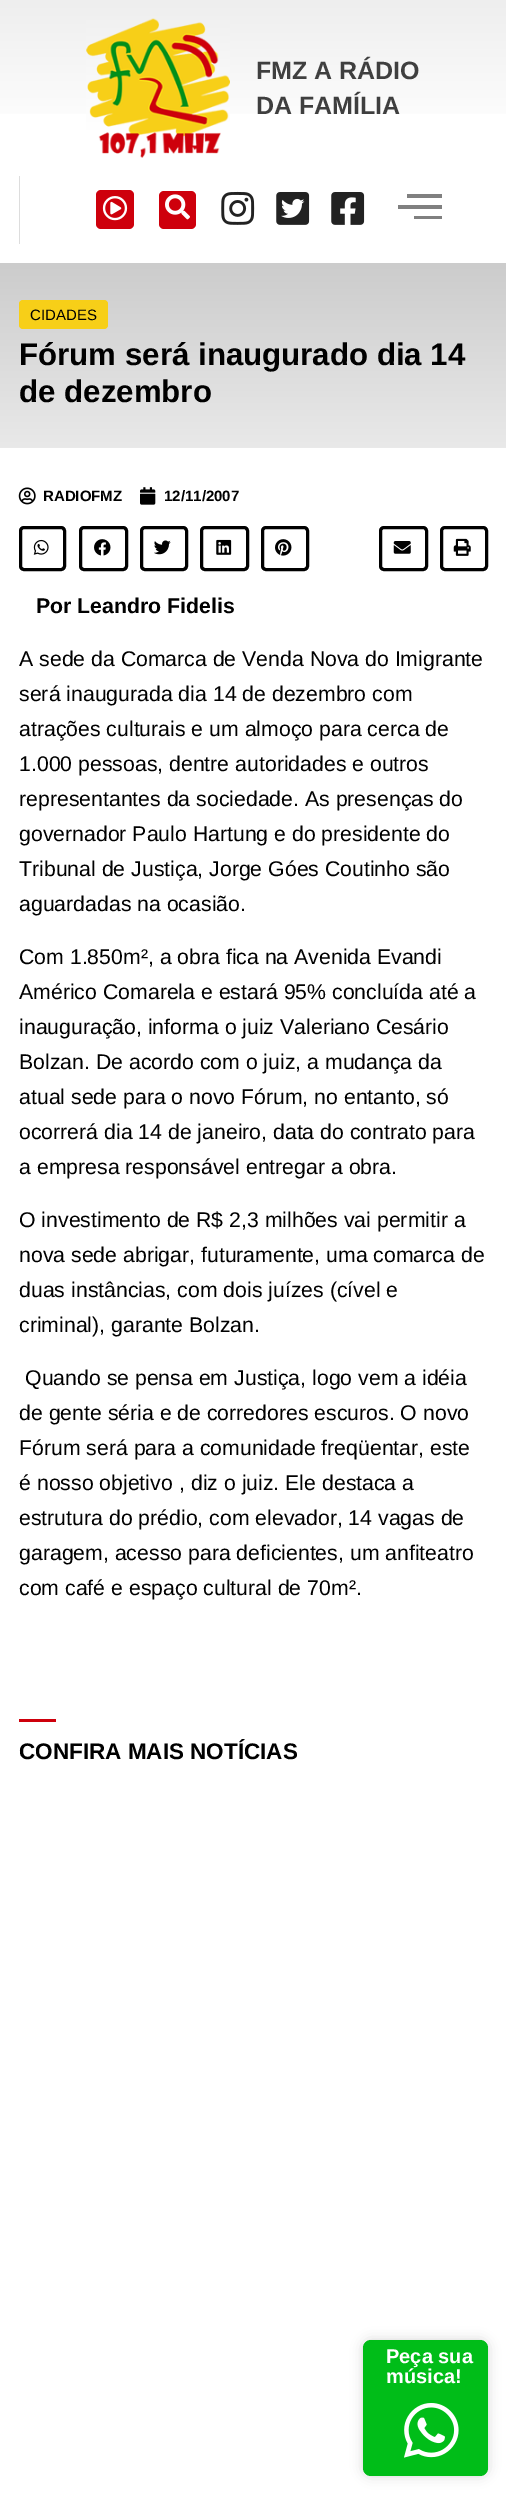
%!PS
<< /PageSize [506 2494] /PageUsesTransparency true >> setpagedevice
/alpha { dup .setfillconstantalpha .setstrokeconstantalpha } def
/roundrect { 5 dict begin { /r /h /w /y /x } { exch def } forall
  x r add y moveto x w add y 2 copy h add r arct x w add y h add x 1 index r arct
  x y h add x y r arct x y 2 copy exch w add exch r arct closepath end } def
/shadow { 12 dict begin { /a /b /q /h /w /y /x } { exch def } forall gsave /was 0 def
  9 -2 -9 { dup b mul 4 div /e exch def 1 sub .425 mul 2.718 exch exp 1 add a .99 .min exch div /now exch def
    1 1 now sub 1 was sub div sub alpha /was now def
    w h .min e 2 mul add 0 gt { x e sub y e sub w e 2 mul add h e 2 mul add
      q e add b .6 mul add w h .min 2 div e add .min 0 .max roundrect fill } if } for grestore end } def
/picture { 5 dict begin { /h /w /y /x /name } { exch def } forall
  gsave x y translate w h scale
  w h 8 [w 0 0 h 0 0] name (r) file false 3 colorimage grestore end } def
0 .pushpdf14devicefilter
0 2494 translate 1 -1 scale
4 setmiterlimit
1 setgray
0 0 506 2494 rectfill
gsave newpath 0 0 moveto 506 0 lineto 506 114 lineto 0 114 lineto closepath clip newpath
<< /ShadingType 2 /ColorSpace /DeviceRGB /Coords [253 0 253 263] /Extend [true true] /Function << /FunctionType 3 /Domain [0 1] /Functions [<< /FunctionType 2 /Domain [0 1] /C0 [0.933 0.933 0.933] /C1 [1 1 1] /N 1 >> << /FunctionType 2 /Domain [0 1] /C0 [1 1 1] /C1 [1 1 1] /N 1 >>] /Bounds [0.51] /Encode [0 1 0 1] >> >> shfill grestore
(img1.rgb) 86 18 144 140 picture
/LiberationSans-Bold [25 0 0 -25 0 0] selectfont
0.247 setgray
256 79 moveto (FMZ A RÁDIO) show
256 114 moveto (DA FAMÍLIA) show
0.867 setgray
19 176 1 68 rectfill
0.808 0 0.047 setrgbcolor
96 190 38 39 5 roundrect fill
(img2.rgb) 102 196 26 25 picture
159 191 37 38 5 roundrect fill
(img3.rgb) 165 194 25 26 picture
(img4.rgb) 221 191 34 34 picture
(img5.rgb) 276 192 34 33 picture
(img6.rgb) 331 192 34 33 picture
0.502 setgray
newpath 398 209 moveto 442 209 lineto 442 205 lineto 398 205 lineto closepath 414 219 moveto 442 219 lineto 442 216 lineto 414 216 lineto closepath 407 194 moveto 407 198 lineto 442 198 lineto 442 194 lineto closepath fill
gsave newpath 0 263 moveto 506 263 lineto 506 448 lineto 0 448 lineto closepath clip newpath
<< /ShadingType 2 /ColorSpace /DeviceRGB /Coords [253 262 253 448] /Extend [true true] /Function << /FunctionType 2 /Domain [0 1] /C0 [0.8 0.8 0.8] /C1 [0.914 0.914 0.914] /N 1 >> >> shfill grestore
0.969 0.812 0.094 setrgbcolor
19 300 89 29 4 roundrect fill
/LiberationSans-Regular [15 0 0 -15 0 0] selectfont
0 setgray
30 320 moveto (CIDADES) show
/LiberationSans-Bold [31.25 0 0 -31.25 0 0] selectfont
19 365 moveto (Fórum será inaugurado dia 14) show
19 402 moveto (de dezembro) show
(img7.rgb) 18 487 18 18 picture
/LiberationSans-Bold [15 0 0 -15 0 0] selectfont
43 501 moveto (RADIOFMZ) show
(img8.rgb) 140 487 16 18 picture
164 501 moveto (12/11/2007) show
3 setlinewidth
20.5 527.5 44 42 3.5 roundrect stroke
(img9.rgb) 33 539 16 16 picture
80.5 527.5 46 42 3.5 roundrect stroke
(img10.rgb) 94 539 17 17 picture
141.5 527.5 45 42 3.5 roundrect stroke
(img11.rgb) 154 540 17 15 picture
201.5 527.5 46 42 3.5 roundrect stroke
(img12.rgb) 216 539 16 16 picture
262.5 527.5 45 42 3.5 roundrect stroke
(img13.rgb) 275 539 17 17 picture
380.5 527.5 46 42 3.5 roundrect stroke
(img14.rgb) 393 541 18 13 picture
441.5 527.5 45 42 3.5 roundrect stroke
(img15.rgb) 453 538 18 18 picture
/LiberationSans-Bold [21.25 0 0 -21.25 0 0] selectfont
36 613 moveto (Por Leandro Fidelis) show
/LiberationSans-Regular [21.25 0 0 -21.25 0 0] selectfont
19 666 moveto (A sede da Comarca de Venda Nova do Imigrante) show
19 701 moveto (será inaugurada dia 14 de dezembro com) show
19 736 moveto (atrações culturais e um almoço para cerca de) show
19 771 moveto (1.000 pessoas, dentre autoridades e outros) show
19 806 moveto (representantes da sociedade. As presenças do) show
19 841 moveto (governador Paulo Hartung e do presidente do) show
19 876 moveto (Tribunal de Justiça, Jorge Góes Coutinho são) show
19 911 moveto (aguardadas na ocasião.) show
19 964 moveto (Com 1.850m², a obra fica na Avenida Evandi) show
19 999 moveto (Américo Comarela e estará 95% concluída até a) show
19 1034 moveto (inauguração, informa o juiz Valeriano Cesário) show
19 1069 moveto (Bolzan. De acordo com o juiz, a mudança da) show
19 1104 moveto (atual sede para o novo Fórum, no entanto, só) show
19 1139 moveto (ocorrerá dia 14 de janeiro, data do contrato para) show
19 1174 moveto (a empresa responsável entregar a obra.) show
19 1227 moveto (O investimento de R$ 2,3 milhões vai permitir a) show
19 1262 moveto (nova sede abrigar, futuramente, uma comarca de) show
19 1297 moveto (duas instâncias, com dois juízes \(cível e) show
19 1332 moveto (criminal\), garante Bolzan.) show
25 1385 moveto (Quando se pensa em Justiça, logo vem a idéia) show
19 1420 moveto (de gente séria e de corredores escuros. O novo) show
19 1455 moveto (Fórum será para a comunidade freqüentar, este) show
19 1490 moveto (é nosso objetivo) show
179 1490 moveto (, diz o juiz. Ele destaca a) show
19 1525 moveto (estrutura do prédio, com elevador, 14 vagas de) show
19 1560 moveto (garagem, acesso para deficientes, um anfiteatro) show
19 1595 moveto (com café e espaço cultural de 70m².) show
0.808 0 0.047 setrgbcolor
19 1719 37 3 rectfill
/LiberationSans-Bold [22.5 0 0 -22.5 0 0] selectfont
0 setgray
19 1759 moveto (CONFIRA MAIS NOTÍCIAS) show
363 2340 125 136 8 6 0.16 shadow
0 0.741 0.094 setrgbcolor
363 2340 125 136 8 roundrect fill
/LiberationSans-Bold [20 0 0 -20 0 0] selectfont
1 setgray
386 2363 moveto (Peça sua) show
386 2383 moveto (música!) show
(img16.rgb) 404 2403 55 55 picture
.poppdf14devicefilter showpage
